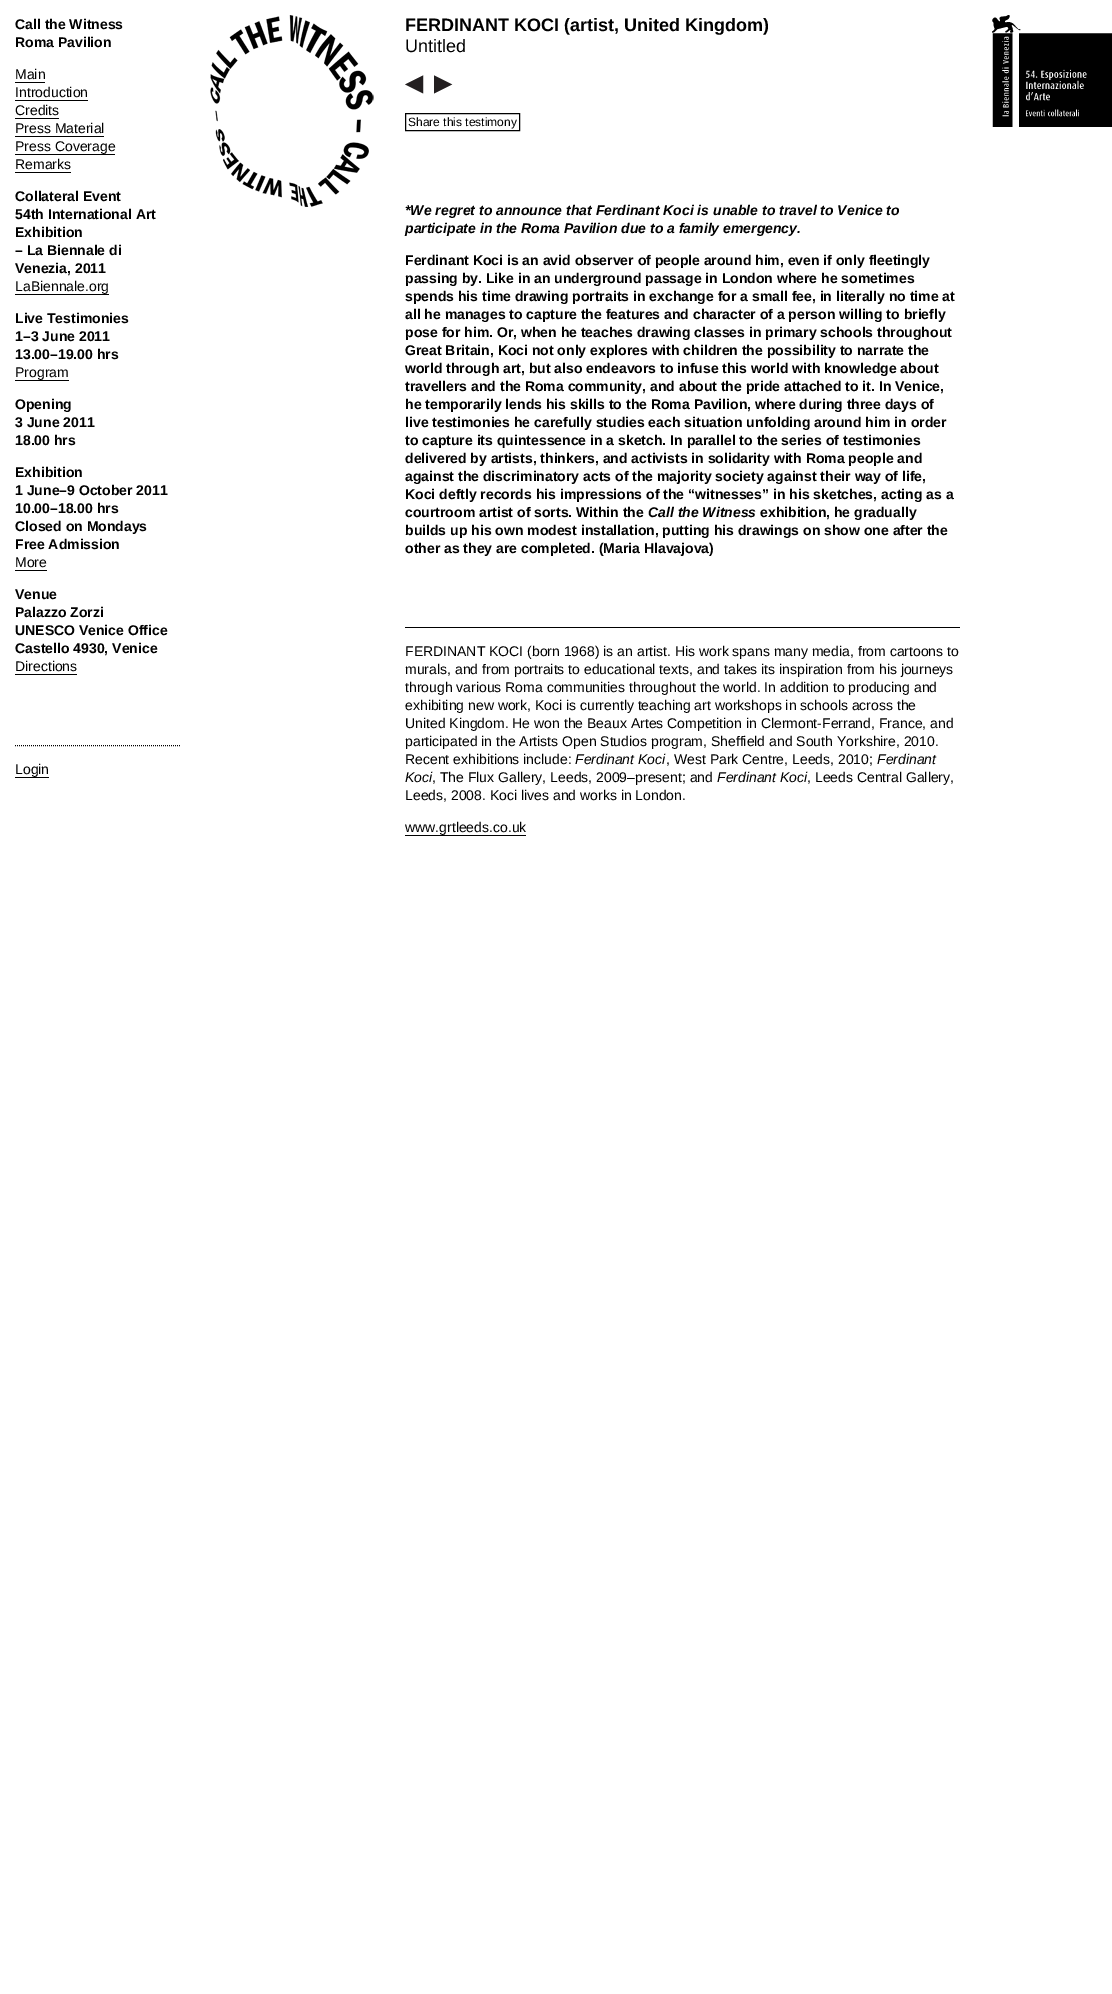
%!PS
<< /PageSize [1112 1994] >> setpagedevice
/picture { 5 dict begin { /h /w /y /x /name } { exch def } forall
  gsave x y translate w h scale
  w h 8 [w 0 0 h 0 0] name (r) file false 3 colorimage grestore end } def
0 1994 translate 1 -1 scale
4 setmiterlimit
1 setgray
0 0 1112 1994 rectfill
/LiberationSans-Bold [14 0 0 -14 0 0] selectfont
0 setgray
15 29 moveto (Call the Witness) show
15 47 moveto (Roma Pavilion) show
/LiberationSans-Regular [14 0 0 -14 0 0] selectfont
15 79 moveto (Main) show
15 82 30 1 rectfill
15 97 moveto (Introduction) show
15 100 73 1 rectfill
15 115 moveto (Credits) show
15 118 44 1 rectfill
15 133 moveto (Press Material) show
15 136 89 1 rectfill
15 151 moveto (Press Coverage) show
15 154 100 1 rectfill
15 169 moveto (Remarks) show
15 172 56 1 rectfill
/LiberationSans-Bold [14 0 0 -14 0 0] selectfont
15 201 moveto (Collateral Event) show
15 219 moveto (54th International Art) show
15 237 moveto (Exhibition) show
15 255 moveto (– La Biennale di) show
15 273 moveto (Venezia, 2011) show
/LiberationSans-Regular [14 0 0 -14 0 0] selectfont
15 291 moveto (LaBiennale.org) show
15 294 94 1 rectfill
/LiberationSans-Bold [14 0 0 -14 0 0] selectfont
15 323 moveto (Live Testimonies) show
15 341 moveto (1–3 June 2011) show
15 359 moveto (13.00–19.00 hrs) show
/LiberationSans-Regular [14 0 0 -14 0 0] selectfont
15 377 moveto (Program) show
15 380 54 1 rectfill
/LiberationSans-Bold [14 0 0 -14 0 0] selectfont
15 409 moveto (Opening) show
15 427 moveto (3 June 2011) show
15 445 moveto (18.00 hrs) show
15 477 moveto (Exhibition) show
15 495 moveto (1 June–9 October 2011) show
15 513 moveto (10.00–18.00 hrs) show
15 531 moveto (Closed on Mondays) show
15 549 moveto (Free Admission) show
/LiberationSans-Regular [14 0 0 -14 0 0] selectfont
15 567 moveto (More) show
15 570 32 1 rectfill
/LiberationSans-Bold [14 0 0 -14 0 0] selectfont
15 599 moveto (Venue) show
15 617 moveto (Palazzo Zorzi) show
15 635 moveto (UNESCO Venice Office) show
15 653 moveto (Castello 4930, Venice) show
/LiberationSans-Regular [14 0 0 -14 0 0] selectfont
15 671 moveto (Directions) show
15 674 62 1 rectfill
[1 1] 0 setdash
newpath 15 745.5 moveto 180 745.5 lineto stroke
15 774 moveto (Login) show
15 777 34 1 rectfill
(img1.rgb) 210 15 164 192 picture
/LiberationSans-Bold [18 0 0 -18 0 0] selectfont
405 31 moveto (FERDINANT KOCI \(artist, United Kingdom\)) show
/LiberationSans-Regular [18 0 0 -18 0 0] selectfont
405 52 moveto (Untitled) show
(img2.rgb) 405 75 19 19 picture
(img3.rgb) 434 75 19 19 picture
[] 0 setdash
405.5 113.5 114 17 rectstroke
/LiberationSans-Regular [12 0 0 -12 0 0] selectfont
408 126 moveto (Share this testimony) show
/LiberationSans-BoldItalic [14 0 0 -14 0 0] selectfont
405 215 moveto (*We regret to announce that Ferdinant Koci is unable to travel to Venice to) show
405 233 moveto (participate in the Roma Pavilion due to a family emergency.) show
/LiberationSans-Bold [14 0 0 -14 0 0] selectfont
405 265 moveto (Ferdinant Koci is an avid observer of people around him, even if only fleetingly) show
405 283 moveto (passing by. Like in an underground passage in London where he sometimes) show
405 301 moveto (spends his time drawing portraits in exchange for a small fee, in literally no time at) show
405 319 moveto (all he manages to capture the features and character of a person willing to briefly) show
405 337 moveto (pose for him. Or, when he teaches drawing classes in primary schools throughout) show
405 355 moveto (Great Britain, Koci not only explores with children the possibility to narrate the) show
405 373 moveto (world through art, but also endeavors to infuse this world with knowledge about) show
405 391 moveto (travellers and the Roma community, and about the pride attached to it. In Venice,) show
405 409 moveto (he temporarily lends his skills to the Roma Pavilion, where during three days of) show
405 427 moveto (live testimonies he carefully studies each situation unfolding around him in order) show
405 445 moveto (to capture its quintessence in a sketch. In parallel to the series of testimonies) show
405 463 moveto (delivered by artists, thinkers, and activists in solidarity with Roma people and) show
405 481 moveto (against the discriminatory acts of the majority society against their way of life,) show
405 499 moveto (Koci deftly records his impressions of the “witnesses” in his sketches, acting as a) show
405 517 moveto (courtroom artist of sorts. Within the) show
/LiberationSans-BoldItalic [14 0 0 -14 0 0] selectfont
648 517 moveto (Call the Witness) show
/LiberationSans-Bold [14 0 0 -14 0 0] selectfont
760 517 moveto (exhibition, he gradually) show
405 535 moveto (builds up his own modest installation, putting his drawings on show one after the) show
405 553 moveto (other as they are completed. \(Maria Hlavajova\)) show
405 627 555 1 rectfill
/LiberationSans-Regular [14 0 0 -14 0 0] selectfont
405 656 moveto (FERDINANT KOCI \(born 1968\) is an artist. His work spans many media, from cartoons to) show
405 674 moveto (murals, and from portraits to educational texts, and takes its inspiration from his journeys) show
405 692 moveto (through various Roma communities throughout the world. In addition to producing and) show
405 710 moveto (exhibiting new work, Koci is currently teaching art workshops in schools across the) show
405 728 moveto (United Kingdom. He won the Beaux Artes Competition in Clermont-Ferrand, France, and) show
405 746 moveto (participated in the Artists Open Studios program, Sheffield and South Yorkshire, 2010.) show
405 764 moveto (Recent exhibitions include:) show
/LiberationSans-Italic [14 0 0 -14 0 0] selectfont
575 764 moveto (Ferdinant Koci) show
/LiberationSans-Regular [14 0 0 -14 0 0] selectfont
666 764 moveto (, West Park Centre, Leeds, 2010;) show
/LiberationSans-Italic [14 0 0 -14 0 0] selectfont
877 764 moveto (Ferdinant) show
405 782 moveto (Koci) show
/LiberationSans-Regular [14 0 0 -14 0 0] selectfont
432 782 moveto (, The Flux Gallery, Leeds, 2009–present; and) show
/LiberationSans-Italic [14 0 0 -14 0 0] selectfont
717 782 moveto (Ferdinant Koci) show
/LiberationSans-Regular [14 0 0 -14 0 0] selectfont
807 782 moveto (, Leeds Central Gallery,) show
405 800 moveto (Leeds, 2008. Koci lives and works in London.) show
405 832 moveto (www.grtleeds.co.uk) show
405 835 121 1 rectfill
(img4.rgb) 992 15 120 112 picture
showpage
